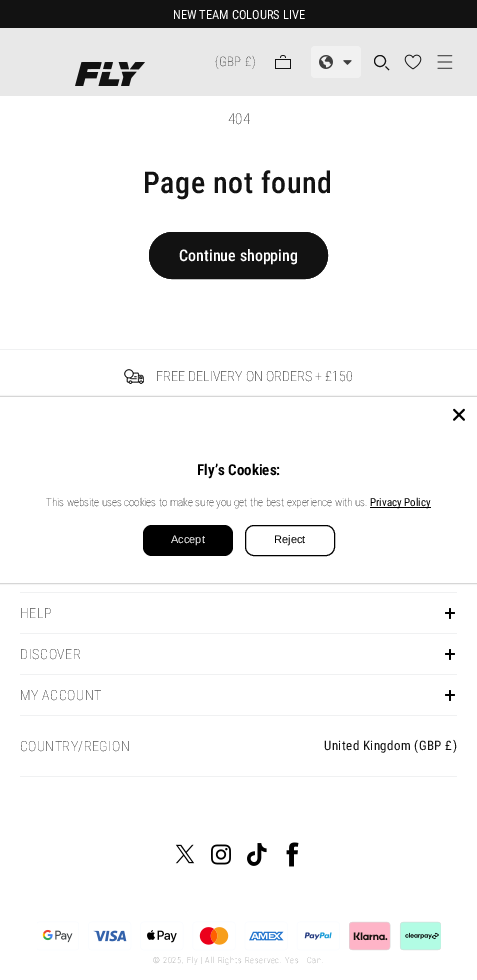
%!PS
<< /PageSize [477 980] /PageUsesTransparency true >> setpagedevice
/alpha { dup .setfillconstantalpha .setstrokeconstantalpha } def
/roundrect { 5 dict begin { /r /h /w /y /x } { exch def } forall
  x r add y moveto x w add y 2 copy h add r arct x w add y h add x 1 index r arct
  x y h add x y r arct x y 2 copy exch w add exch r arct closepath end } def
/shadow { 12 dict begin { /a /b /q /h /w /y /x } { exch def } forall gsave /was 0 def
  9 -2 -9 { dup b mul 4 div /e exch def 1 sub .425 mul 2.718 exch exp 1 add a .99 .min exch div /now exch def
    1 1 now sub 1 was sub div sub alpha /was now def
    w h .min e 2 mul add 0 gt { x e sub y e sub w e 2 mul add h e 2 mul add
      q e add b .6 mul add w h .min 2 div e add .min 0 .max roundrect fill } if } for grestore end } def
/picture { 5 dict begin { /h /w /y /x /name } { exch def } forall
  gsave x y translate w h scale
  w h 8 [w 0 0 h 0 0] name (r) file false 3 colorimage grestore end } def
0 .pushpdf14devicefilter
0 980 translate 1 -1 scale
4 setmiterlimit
1 setgray
0 0 477 980 rectfill
0.071 setgray
0 0 477 28 rectfill
/RobotoCondensed-Regular [12.5 0 0 -12.5 0 0] selectfont
1 setgray
173 19 moveto (NEW TEAM COLOURS LIVE) show
0.91 setgray
0 28 477 68 rectfill
(img1.rgb) 75 62 70 24 picture
/RobotoCondensed-Thin [13 0 0 -13 0 0] selectfont
0.071 setgray
215 66 moveto 0.4 0 (\(GBP £\)) ashow
(img2.rgb) 275 55 16 14 picture
0.945 setgray
311 46 50 32 4 roundrect fill
(img3.rgb) 319 55 14 14 picture
(img4.rgb) 343 60 9 5 picture
0.071 setgray
newpath 380 61 5.5 0 360 arc closepath stroke
newpath 389 70 moveto 385.5 66.5 lineto stroke
(img5.rgb) 404 54 18 16 picture
(img6.rgb) 437 55 16 14 picture
/RobotoCondensed-Thin [15 0 0 -15 0 0] selectfont
228 124 moveto (404) show
/RobotoCondensed-Medium [30 0 0 -30 0 0] selectfont
143 193 moveto 0.6 0 (Page not found) ashow
149 232 179 47 23.5 roundrect fill
149.5 232.5 178 46 23 roundrect stroke
/RobotoCondensed-Medium [16 0 0 -16 0 0] selectfont
1 setgray
179 261 moveto (Continue shopping) show
0.941 0.945 0.949 setrgbcolor
0 349 477 1 rectfill
(img7.rgb) 124 369 20 15 picture
/RobotoCondensed-Thin [14 0 0 -14 0 0] selectfont
0 setgray
156 381 moveto (FREE DELIVERY ON ORDERS + £150) show
0 397 477 186 0 1 0.5 shadow
1 setgray
0 397 477 186 rectfill
(img8.rgb) 453 408 12 13 picture
/RobotoCondensed-SemiBold [15 0 0 -15 0 0] selectfont
0 setgray
197 475 moveto (Fly’s Cookies:) show
/RobotoCondensed-Thin [11 0 0 -11 0 0] selectfont
46 506 moveto (This website uses cookies to make sure you get the best experience with us.) show
370 507 61 1 rectfill
/RobotoCondensed-Regular [11 0 0 -11 0 0] selectfont
370 506 moveto (Privacy Policy) show
143 525 90 31 9 roundrect fill
/LiberationSans-Regular [11 0 0 -11 0 0] selectfont
0.973 setgray
171 543 moveto (Accept) show
0 setgray
245.5 525.5 89 30 8.5 roundrect stroke
274 543 moveto (Reject) show
0.941 0.945 0.949 setrgbcolor
20 592 437 1 rectfill
/RobotoCondensed-Thin [14 0 0 -14 0 0] selectfont
0.071 setgray
20 618 moveto 0.5 0 (HELP) ashow
0 setgray
449 608 2 11 1 roundrect fill
445 612 10 2 1 roundrect fill
0.941 0.945 0.949 setrgbcolor
20 633 437 1 rectfill
0.071 setgray
20 659 moveto 0.5 0 (DISCOVER) ashow
0 setgray
449 649 2 11 1 roundrect fill
445 653 10 2 1 roundrect fill
0.941 0.945 0.949 setrgbcolor
20 674 437 1 rectfill
0.071 setgray
20 700 moveto 0.5 0 (MY ACCOUNT) ashow
0 setgray
449 690 2 11 1 roundrect fill
445 694 10 2 1 roundrect fill
0.941 0.945 0.949 setrgbcolor
20 715 437 1 rectfill
20 776 437 1 rectfill
0.071 setgray
20 751 moveto 0.4 0 (COUNTRY/REGION) ashow
/RobotoCondensed-Regular [13 0 0 -13 0 0] selectfont
324 750 moveto 0.4 0 (United Kingdom \(GBP £\)) ashow
(img9.rgb) 175 844 20 20 picture
(img10.rgb) 211 844 20 21 picture
(img11.rgb) 247 843 20 23 picture
(img12.rgb) 286 842 13 25 picture
(img13.rgb) 37 921 404 30 picture
/RobotoCondensed-Thin [8.3 0 0 -8.3 0 0] selectfont
0.494 setgray
153 963 moveto 0.7 0 (© 2025, Fly | All Rights Reserved. Yes I Can.) ashow
.poppdf14devicefilter showpage
